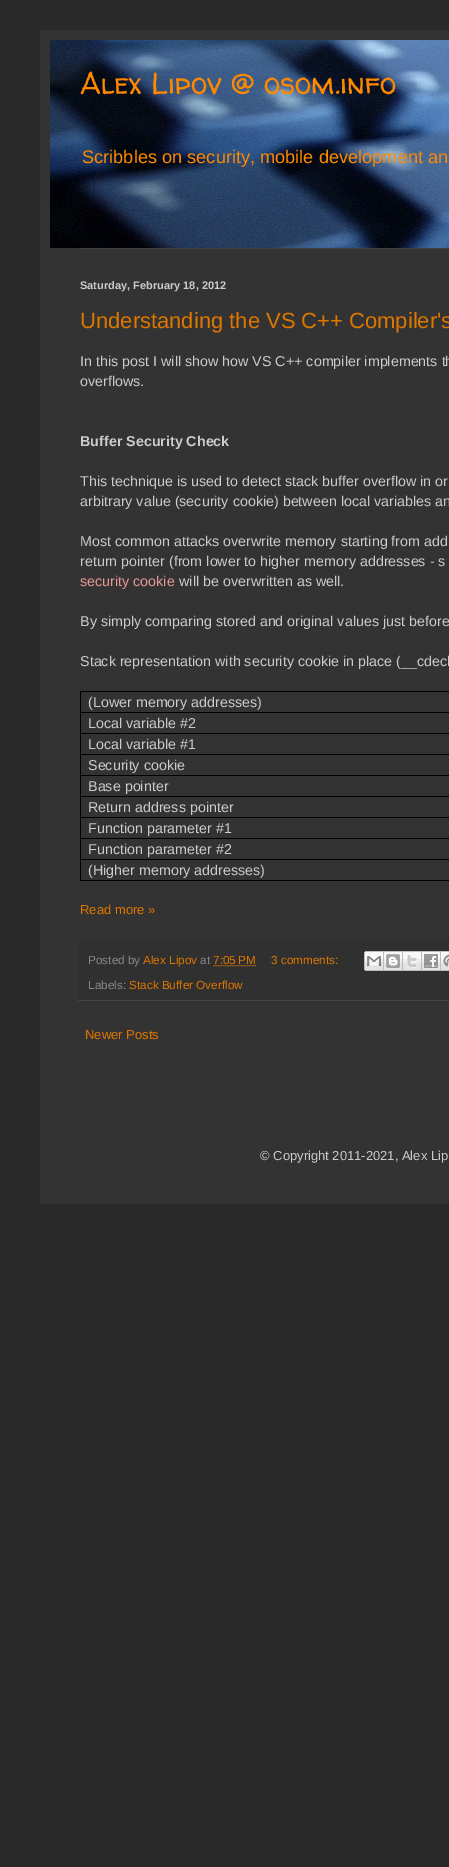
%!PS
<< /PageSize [449 1867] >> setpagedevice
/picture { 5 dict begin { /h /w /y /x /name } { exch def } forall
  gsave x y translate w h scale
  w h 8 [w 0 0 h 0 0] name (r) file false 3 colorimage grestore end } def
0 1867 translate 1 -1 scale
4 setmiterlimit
0.161 setgray
0 0 449 1867 rectfill
0.2 setgray
40 30 409 1174 rectfill
(img1.rgb) 50 40 399 208 picture
/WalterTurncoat-Regular [30 0 0 -30 0 0] selectfont
1 0.537 0 setrgbcolor
80 94 moveto (Alex Lipov @ osom.info) show
/LiberationSans-Regular [18.2 0 0 -18.2 0 0] selectfont
82 163 moveto (Scribbles on security, mobile development an) show
0.251 setgray
80 248 369 1 rectfill
/LiberationSans-Bold [11 0 0 -11 0 0] selectfont
0.8 setgray
80 289 moveto (Saturday, February 18, 2012) show
/LiberationSans-Regular [22 0 0 -22 0 0] selectfont
0.867 0.467 0 setrgbcolor
80 328 moveto (Understanding the VS C++ Compiler's) show
/LiberationSans-Regular [14.3 0 0 -14.3 0 0] selectfont
0.8 setgray
80 366 moveto (In this post I will show how VS C++ compiler implements th) show
80 386 moveto (overflows.) show
/LiberationSans-Bold [14.3 0 0 -14.3 0 0] selectfont
80 446 moveto (Buffer Security Check) show
/LiberationSans-Regular [14.3 0 0 -14.3 0 0] selectfont
80 486 moveto (This technique is used to detect stack buffer overflow in or) show
80 506 moveto (arbitrary value \(security cookie\) between local variables an) show
80 546 moveto (Most common attacks overwrite memory starting from add) show
80 566 moveto (return pointer \(from lower to higher memory addresses - s) show
0.918 0.6 0.6 setrgbcolor
80 586 moveto (security cookie) show
0.8 setgray
179 586 moveto (will be overwritten as well.) show
80 626 moveto (By simply comparing stored and original values just before) show
80 666 moveto (Stack representation with security cookie in place \(__cdecl) show
0 setgray
80 691 369 1 rectfill
80 712 369 1 rectfill
80 733 369 1 rectfill
80 754 369 1 rectfill
80 775 369 1 rectfill
80 796 369 1 rectfill
80 817 369 1 rectfill
80 838 369 1 rectfill
80 859 369 1 rectfill
80 880 369 1 rectfill
80 859 1 22 rectfill
80 838 1 22 rectfill
80 817 1 22 rectfill
80 796 1 22 rectfill
80 775 1 22 rectfill
80 754 1 22 rectfill
80 733 1 22 rectfill
80 712 1 22 rectfill
80 691 1 22 rectfill
0.8 setgray
88 707 moveto (\(Lower memory addresses\)) show
88 728 moveto (Local variable #2) show
88 749 moveto (Local variable #1) show
88 770 moveto (Security cookie) show
88 791 moveto (Base pointer) show
88 812 moveto (Return address pointer) show
88 833 moveto (Function parameter #1) show
88 854 moveto (Function parameter #2) show
88 875 moveto (\(Higher memory addresses\)) show
/LiberationSans-Regular [13 0 0 -13 0 0] selectfont
0.867 0.467 0 setrgbcolor
80 914 moveto (Read more ») show
0.188 setgray
78 940 371 60 rectfill
0.267 setgray
78 1000 371 1 rectfill
/LiberationSans-Regular [11.75 0 0 -11.75 0 0] selectfont
0.533 setgray
88 964 moveto (Posted by) show
0.867 0.467 0 setrgbcolor
143 964 moveto (Alex Lipov) show
0.533 setgray
200 964 moveto (at) show
0.867 0.467 0 setrgbcolor
213 964 moveto (7:05 PM) show
[1 1] 0 setdash
newpath 213.5 965.5 moveto 256 965.5 lineto stroke
271 964 moveto (3 comments:) show
(img2.rgb) 364 951 20 20 picture
(img3.rgb) 384 951 19 20 picture
(img4.rgb) 403 951 19 20 picture
(img5.rgb) 422 951 19 20 picture
(img6.rgb) 441 951 8 20 picture
0.533 setgray
88 989 moveto (Labels:) show
0.867 0.467 0 setrgbcolor
129 989 moveto (Stack Buffer Overflow) show
/LiberationSans-Regular [13 0 0 -13 0 0] selectfont
85 1039 moveto (Newer Posts) show
0.8 setgray
260 1160 moveto (© Copyright 2011-2021, Alex Lip) show
showpage
